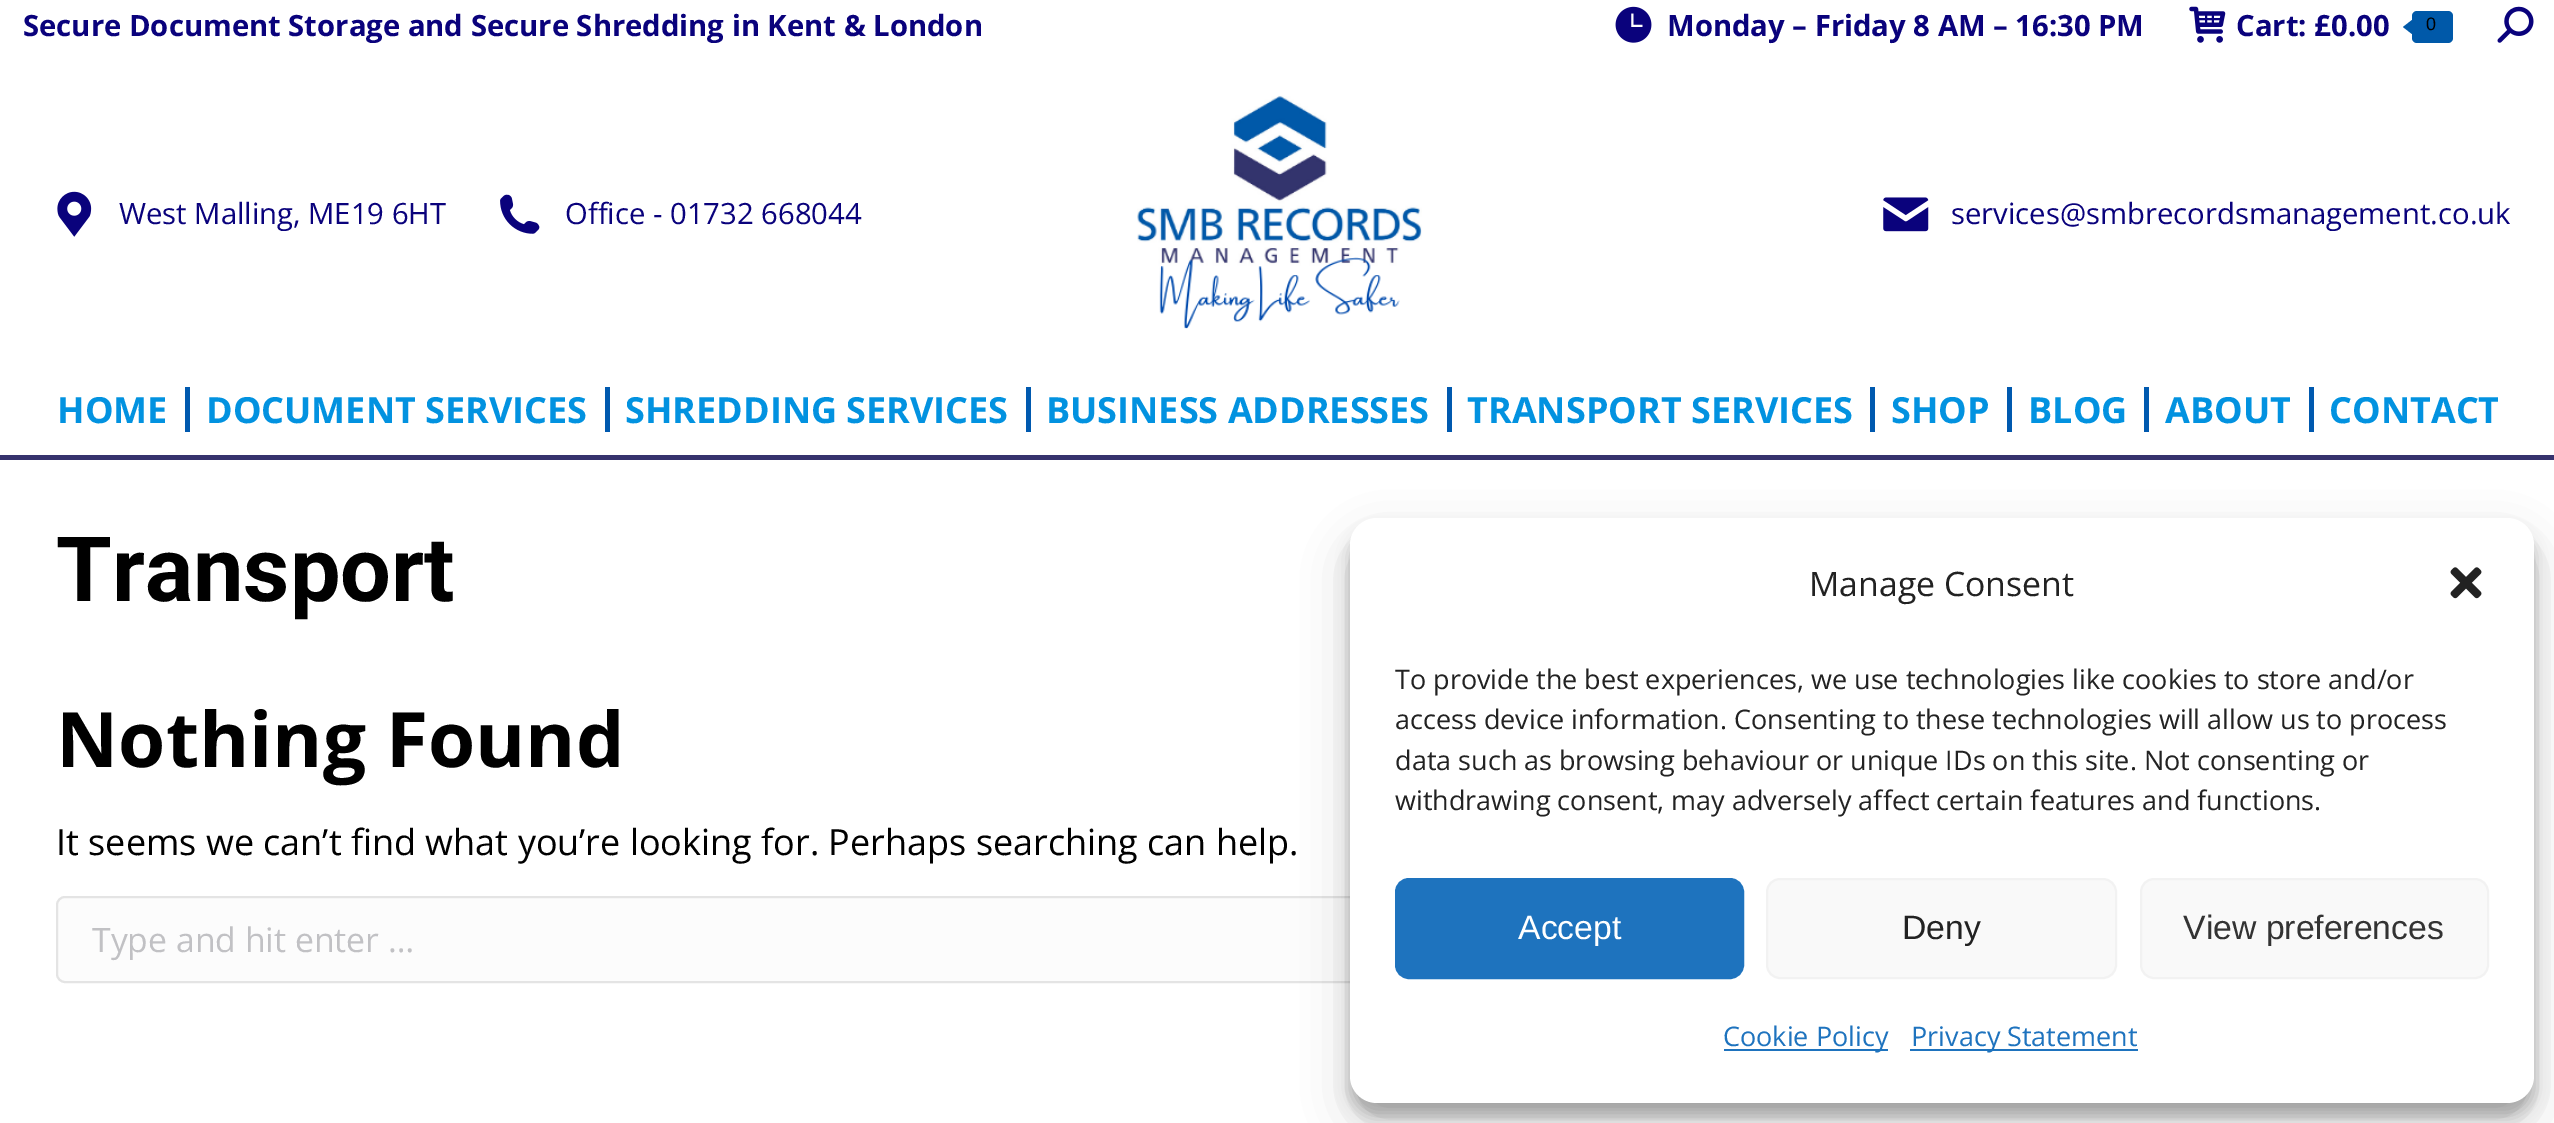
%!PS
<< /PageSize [2554 1123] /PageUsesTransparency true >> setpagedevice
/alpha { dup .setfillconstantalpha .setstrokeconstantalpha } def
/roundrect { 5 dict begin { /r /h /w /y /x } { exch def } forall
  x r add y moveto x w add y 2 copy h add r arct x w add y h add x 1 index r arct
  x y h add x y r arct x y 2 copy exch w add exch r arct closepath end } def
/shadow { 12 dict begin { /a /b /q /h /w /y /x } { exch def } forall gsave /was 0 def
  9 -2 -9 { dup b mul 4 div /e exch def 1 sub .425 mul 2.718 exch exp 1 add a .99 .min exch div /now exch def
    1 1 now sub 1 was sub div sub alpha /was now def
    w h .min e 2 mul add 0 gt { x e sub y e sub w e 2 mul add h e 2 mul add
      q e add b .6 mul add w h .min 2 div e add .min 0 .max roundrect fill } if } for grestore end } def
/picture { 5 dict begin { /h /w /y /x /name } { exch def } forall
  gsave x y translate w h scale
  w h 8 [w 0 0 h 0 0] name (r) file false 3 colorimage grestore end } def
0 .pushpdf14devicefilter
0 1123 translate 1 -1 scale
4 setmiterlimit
1 setgray
0 0 2554 1123 rectfill
0.212 0.196 0.427 setrgbcolor
0 455 2554 5 rectfill
/OpenSans-Bold [29.25 0 0 -29.25 0 0] selectfont
0.039 0.008 0.486 setrgbcolor
23 36 moveto (Secure Document Storage and Secure Shredding in Kent & London) show
(img1.rgb) 1615 6 37 37 picture
1667 36 moveto (Monday – Friday 8 AM – 16:30 PM) show
(img2.rgb) 2189 6 37 37 picture
2236 36 moveto (Cart: £0.00) show
0 0.349 0.663 setrgbcolor
2412 11 41 32 5 roundrect fill
newpath 2412 20 moveto 2412 34 lineto 2403 27 lineto closepath fill
/LiberationSans-Regular [18 0 0 -18 0 0] selectfont
0 setgray
2426 30 moveto (0) show
(img3.rgb) 2497 6 37 37 picture
(img4.rgb) 57 191 35 46 picture
/OpenSans-Regular [29.25 0 0 -29.25 0 0] selectfont
0.039 0.008 0.486 setrgbcolor
119 224 moveto (West Malling, ME19 6HT) show
(img5.rgb) 500 194 40 40 picture
565 224 moveto (Office - 01732 668044) show
(img6.rgb) 1137 95 285 234 picture
(img7.rgb) 1883 197 46 35 picture
1951 224 moveto (services@smbrecordsmanagement.co.uk) show
/OpenSans-Bold [36 0 0 -36 0 0] selectfont
0.008 0.573 0.878 setrgbcolor
57 423 moveto (HOME) show
0 0.349 0.686 setrgbcolor
185 387 5 45 rectfill
0.008 0.573 0.878 setrgbcolor
206 423 moveto (DOCUMENT SERVICES) show
0 0.349 0.686 setrgbcolor
605 387 5 45 rectfill
0.008 0.573 0.878 setrgbcolor
625 423 moveto (SHREDDING SERVICES) show
0 0.349 0.686 setrgbcolor
1026 387 5 45 rectfill
0.008 0.573 0.878 setrgbcolor
1046 423 moveto (BUSINESS ADDRESSES) show
0 0.349 0.686 setrgbcolor
1447 387 5 45 rectfill
0.008 0.573 0.878 setrgbcolor
1467 423 moveto (TRANSPORT SERVICES) show
0 0.349 0.686 setrgbcolor
1870 387 5 45 rectfill
0.008 0.573 0.878 setrgbcolor
1891 423 moveto (SHOP) show
0 0.349 0.686 setrgbcolor
2007 387 5 45 rectfill
0.008 0.573 0.878 setrgbcolor
2028 423 moveto (BLOG) show
0 0.349 0.686 setrgbcolor
2144 387 5 45 rectfill
0.008 0.573 0.878 setrgbcolor
2165 423 moveto (ABOUT) show
0 0.349 0.686 setrgbcolor
2309 387 5 45 rectfill
0.008 0.573 0.878 setrgbcolor
2329 423 moveto (CONTACT) show
/Roboto-Bold [90 0 0 -90 0 0] selectfont
0 setgray
56 601 moveto (Transport) show
/OpenSans-Bold [76.5 0 0 -76.5 0 0] selectfont
56 767 moveto (Nothing Found) show
/OpenSans-Regular [36 0 0 -36 0 0] selectfont
56 855 moveto (It seems we can’t find what you’re looking for. Perhaps searching can help.) show
0.988 setgray
57 897 2442 85 8 roundrect gsave fill grestore
0.894 setgray
2 setlinewidth
stroke
/OpenSans-Regular [33.75 0 0 -33.75 0 0] selectfont
0.757 0.757 0.769 setrgbcolor
92 952 moveto (Type and hit enter …) show
0 setgray
1350 531 1184 585 27 7 0.23 shadow
1350 540 1184 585 27 22.5 0.19 shadow
1 setgray
1350 518 1184 585 27 roundrect fill
0.133 setgray
1809 596 moveto (Manage Consent) show
(img8.rgb) 2450 567 32 32 picture
/OpenSans-Regular [27 0 0 -27 0 0] selectfont
1395 689 moveto (To provide the best experiences, we use technologies like cookies to store and/or) show
1395 729 moveto (access device information. Consenting to these technologies will allow us to process) show
1395 770 moveto (data such as browsing behaviour or unique IDs on this site. Not consenting or) show
1395 810 moveto (withdrawing consent, may adversely affect certain features and functions.) show
0.118 0.451 0.745 setrgbcolor
1396 879 347 99 13 roundrect gsave fill grestore
stroke
/LiberationSans-Regular [33.75 0 0 -33.75 0 0] selectfont
1 setgray
1518 939 moveto (Accept) show
0.976 setgray
1767 879 349 99 13 roundrect gsave fill grestore
0.949 setgray
stroke
0.133 setgray
1902 939 moveto (Deny) show
0.976 setgray
2141 879 347 99 13 roundrect gsave fill grestore
0.949 setgray
stroke
0.2 setgray
2183 939 moveto (View preferences) show
0.118 0.451 0.745 setrgbcolor
1724 1049 164 2 rectfill
/OpenSans-Regular [27 0 0 -27 0 0] selectfont
1723 1046 moveto (Cookie Policy) show
1910 1049 228 2 rectfill
1911 1046 moveto (Privacy Statement) show
.poppdf14devicefilter showpage
